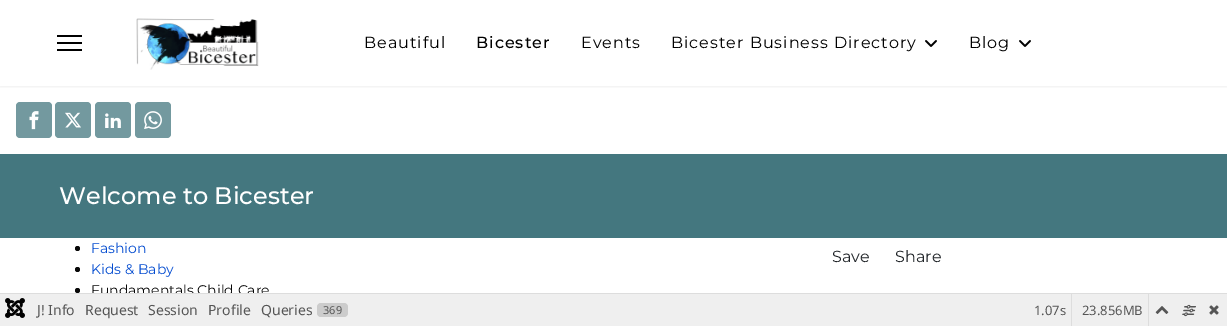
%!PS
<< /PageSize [1227 326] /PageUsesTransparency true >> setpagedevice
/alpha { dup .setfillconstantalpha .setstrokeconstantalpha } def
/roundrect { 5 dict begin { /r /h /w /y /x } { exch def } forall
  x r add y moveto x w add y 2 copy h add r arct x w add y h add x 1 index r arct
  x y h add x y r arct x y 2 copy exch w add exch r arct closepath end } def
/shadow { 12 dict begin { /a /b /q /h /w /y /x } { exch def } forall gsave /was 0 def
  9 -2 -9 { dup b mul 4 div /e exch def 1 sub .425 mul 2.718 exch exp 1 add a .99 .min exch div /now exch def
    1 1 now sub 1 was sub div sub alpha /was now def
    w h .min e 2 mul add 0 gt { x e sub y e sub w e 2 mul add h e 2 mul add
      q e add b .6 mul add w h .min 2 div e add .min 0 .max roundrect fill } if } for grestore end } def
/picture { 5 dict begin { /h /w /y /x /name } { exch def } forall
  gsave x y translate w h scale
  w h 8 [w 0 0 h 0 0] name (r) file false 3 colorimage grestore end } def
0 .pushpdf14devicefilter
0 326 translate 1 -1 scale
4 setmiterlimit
1 setgray
0 0 1227 326 rectfill
gsave
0 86 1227 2 rectclip
0 setgray
0 0 1227 86 0 2 0.1 shadow
grestore
0 setgray
57 35 25 2 rectfill
57 42 25 2 rectfill
57 49 25 2 rectfill
(img1.rgb) 136 18 123 52 picture
/Montserrat-Regular [16 0 0 -16 0 0] selectfont
364 48 moveto 1 0 (Beautiful) ashow
/Montserrat-Medium [16 0 0 -16 0 0] selectfont
476 48 moveto 1 0 (Bicester) ashow
/Montserrat-Regular [16 0 0 -16 0 0] selectfont
581 48 moveto 1 0 (Events) ashow
671 48 moveto 1 0 (Bicester Business Directory) ashow
(img2.rgb) 925 40 12 7 picture
969 48 moveto 1 0 (Blog) ashow
(img2.rgb) 1019 40 12 7 picture
0.451 0.6 0.624 setrgbcolor
16 102 36 36 4 roundrect fill
(img3.rgb) 29 111 10 19 picture
55 102 36 36 4 roundrect fill
(img4.rgb) 65 112 16 16 picture
95 102 36 36 4 roundrect fill
(img5.rgb) 105 113 16 15 picture
135 102 36 36 4 roundrect fill
(img6.rgb) 144 111 18 18 picture
0.267 0.467 0.498 setrgbcolor
0 154 1227 84 rectfill
/Montserrat-Medium [24 0 0 -24 0 0] selectfont
1 setgray
59 204 moveto (Welcome to Bicester) show
0.031 setgray
newpath 77.5 248.5 2.5 0 360 arc closepath fill
/Montserrat-Regular [14 0 0 -14 0 0] selectfont
0.016 0.298 0.816 setrgbcolor
91 253 moveto (Fashion) show
0.031 setgray
newpath 77.5 269.5 2.5 0 360 arc closepath fill
0.016 0.298 0.816 setrgbcolor
91 274 moveto (Kids & Baby) show
0.031 setgray
newpath 77.5 290.5 2.5 0 360 arc closepath fill
91 295 moveto (Fundamentals Child Care) show
/Montserrat-Regular [16 0 0 -16 0 0] selectfont
0.129 0.145 0.161 setrgbcolor
832 262 moveto (Save) show
895 262 moveto (Share) show
0.867 setgray
0 293 1227 1 rectfill
0.937 setgray
0 294 1227 32 rectfill
(img7.rgb) 5 298 20 20 picture
/NotoSans-Regular [14 0 0 -14 0 0] selectfont
0.333 setgray
37 315 moveto (J! Info) show
85 315 moveto (Request) show
148 315 moveto (Session) show
208 315 moveto (Profile) show
261 315 moveto (Queries) show
0.8 setgray
317 303 31 14 4 roundrect fill
/NotoSans-Regular [11 0 0 -11 0 0] selectfont
0.333 setgray
323 314 moveto (369) show
0.867 setgray
1071 294 1 32 rectfill
/NotoSans-Regular [13 0 0 -13 0 0] selectfont
0.333 setgray
1034 315 moveto (1.07s) show
0.867 setgray
1148 294 1 32 rectfill
0.333 setgray
1082 315 moveto (23.856MB) show
(img8.rgb) 1155 306 14 8 picture
(img9.rgb) 1182 304 14 13 picture
(img10.rgb) 1209 305 10 10 picture
.poppdf14devicefilter showpage
